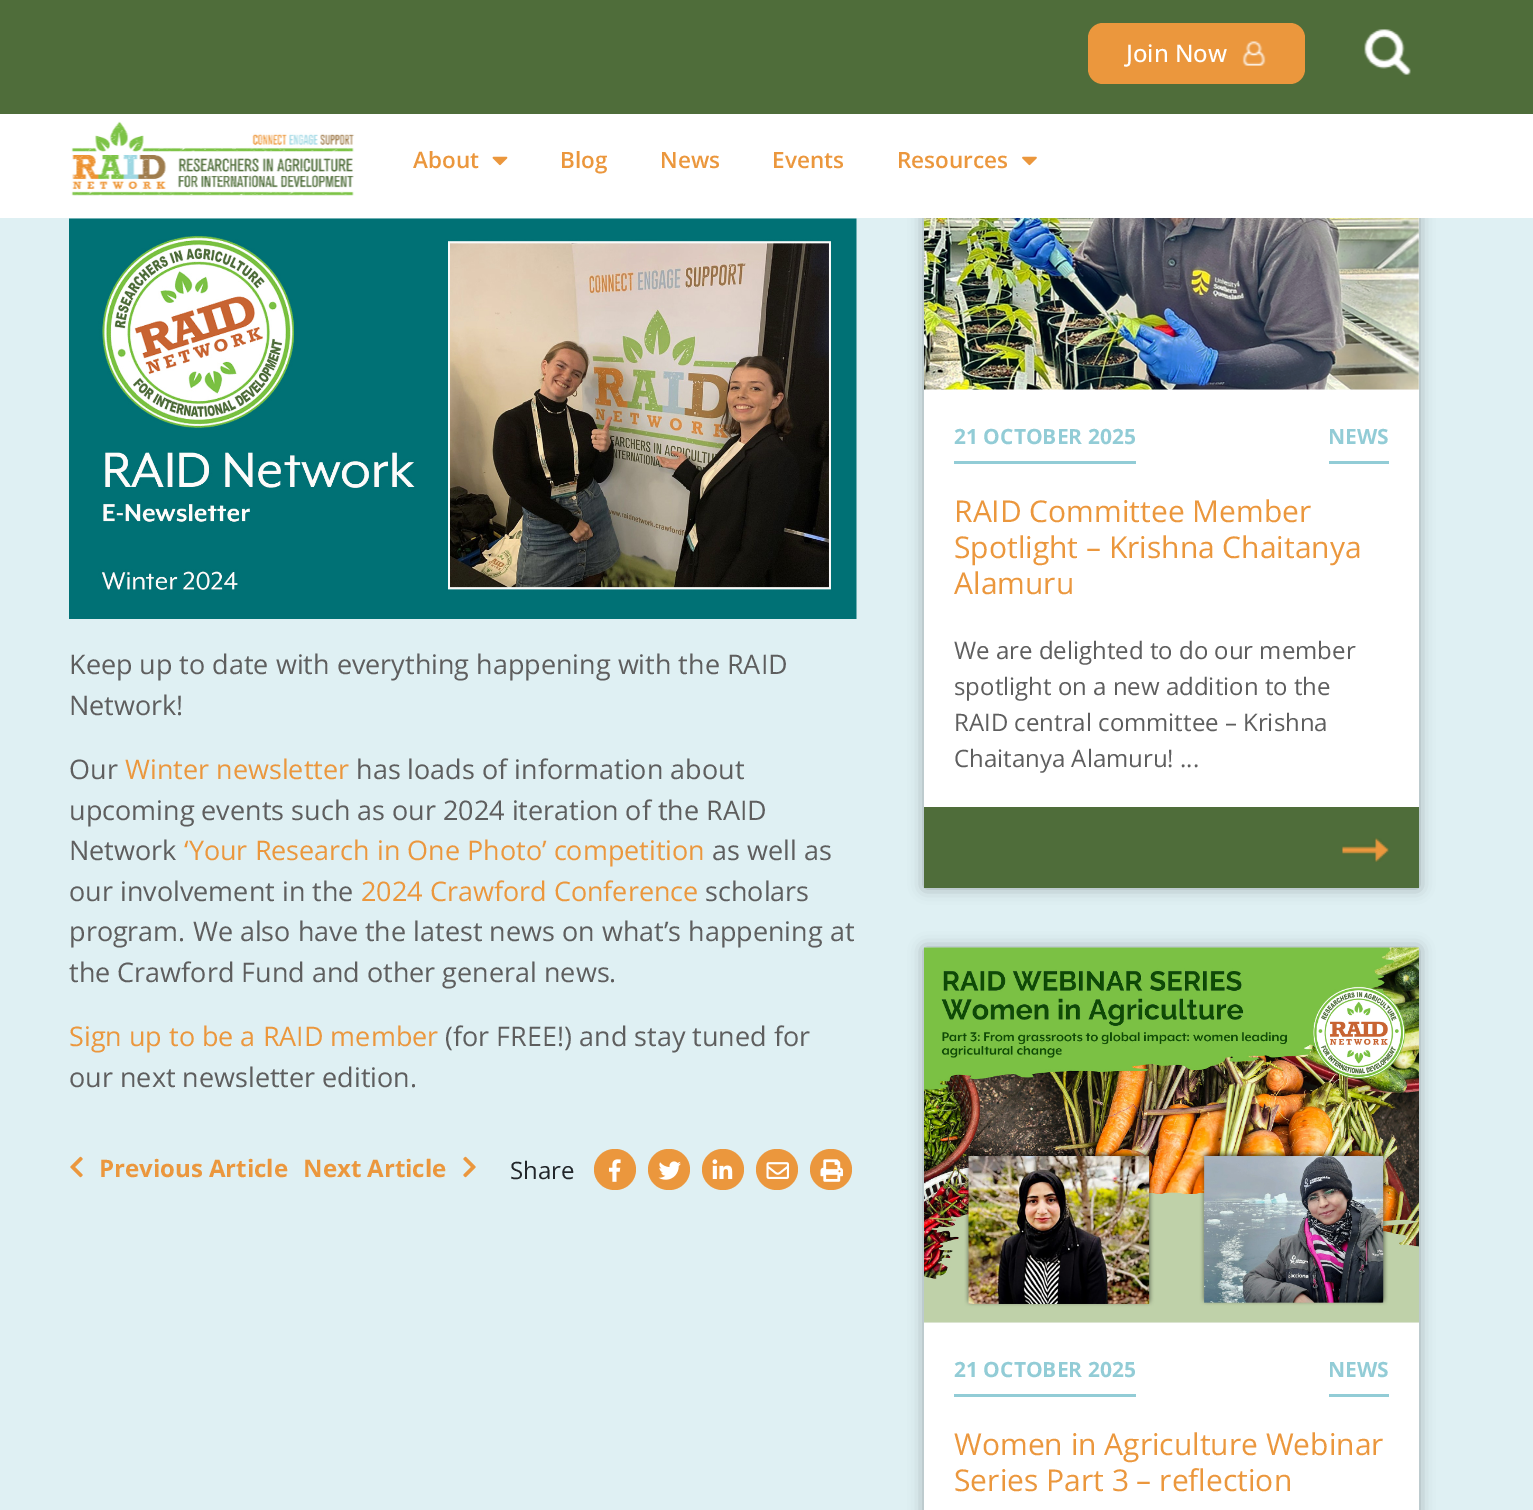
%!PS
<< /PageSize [1533 1510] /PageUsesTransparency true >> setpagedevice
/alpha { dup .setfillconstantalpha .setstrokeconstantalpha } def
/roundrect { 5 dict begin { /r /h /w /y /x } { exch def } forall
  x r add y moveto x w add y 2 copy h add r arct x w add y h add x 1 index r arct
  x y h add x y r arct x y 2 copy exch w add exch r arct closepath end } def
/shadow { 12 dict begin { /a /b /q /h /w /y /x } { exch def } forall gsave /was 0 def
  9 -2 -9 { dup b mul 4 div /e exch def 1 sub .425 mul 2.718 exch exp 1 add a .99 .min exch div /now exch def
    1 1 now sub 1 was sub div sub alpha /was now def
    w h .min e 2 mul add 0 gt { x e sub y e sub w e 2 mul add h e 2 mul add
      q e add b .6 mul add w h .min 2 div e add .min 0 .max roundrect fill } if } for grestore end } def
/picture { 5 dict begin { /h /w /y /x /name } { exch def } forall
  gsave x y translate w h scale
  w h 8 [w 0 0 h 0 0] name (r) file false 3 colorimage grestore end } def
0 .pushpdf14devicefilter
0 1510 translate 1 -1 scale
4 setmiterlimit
0.875 0.941 0.953 setrgbcolor
0 0 1533 1510 rectfill
0 setgray
924 15 495 873 0 7.5 0.3 shadow
1 setgray
0 114 1533 104 rectfill
0.31 0.427 0.227 setrgbcolor
0 0 1533 114 rectfill
0.922 0.592 0.239 setrgbcolor
1088 23 217 61 15 roundrect fill
/OpenSans-Medium [24 0 0 -24 0 0] selectfont
1 setgray
1126 62 moveto (Join Now) show
(img1.rgb) 1242 41 24 25 picture
(img2.rgb) 1364 29 47 46 picture
(img3.rgb) 71 121 284 75 picture
/OpenSans-SemiBold [22.5 0 0 -22.5 0 0] selectfont
0.922 0.592 0.239 setrgbcolor
413 168 moveto (About) show
(img4.rgb) 492 156 16 10 picture
560 168 moveto (Blog) show
660 168 moveto (News) show
772 168 moveto (Events) show
897 168 moveto (Resources) show
(img5.rgb) 1022 156 15 10 picture
(img6.rgb) 69 218 788 401 picture
/OpenSans-Regular [27 0 0 -27 0 0] selectfont
0.369 setgray
69 674 moveto (Keep up to date with everything happening with the RAID) show
69 715 moveto (Network!) show
69 779 moveto (Our) show
0.922 0.592 0.239 setrgbcolor
125 779 moveto (Winter newsletter) show
0.369 setgray
356 779 moveto (has loads of information about) show
69 820 moveto (upcoming events such as our 2024 iteration of the RAID) show
69 860 moveto (Network) show
0.922 0.592 0.239 setrgbcolor
184 860 moveto (‘Your Research in One Photo’ competition) show
0.369 setgray
712 860 moveto (as well as) show
69 901 moveto (our involvement in the) show
0.922 0.592 0.239 setrgbcolor
361 901 moveto (2024 Crawford Conference) show
0.369 setgray
705 901 moveto (scholars) show
69 941 moveto (program. We also have the latest news on what’s happening at) show
69 982 moveto (the Crawford Fund and other general news.) show
0.922 0.592 0.239 setrgbcolor
69 1046 moveto (Sign up to be a RAID member) show
0.369 setgray
445 1046 moveto (\(for FREE!\) and stay tuned for) show
69 1087 moveto (our next newsletter edition.) show
(img7.rgb) 70 1156 13 22 picture
/OpenSans-Bold [24 0 0 -24 0 0] selectfont
0.922 0.592 0.239 setrgbcolor
99 1177 moveto (Previous Article) show
303 1177 moveto (Next Article) show
(img8.rgb) 463 1156 13 22 picture
/OpenSans-Regular [24 0 0 -24 0 0] selectfont
0.129 0.145 0.161 setrgbcolor
510 1179 moveto (Share) show
0.922 0.592 0.239 setrgbcolor
594 1149 42 41 20.5 roundrect fill
(img9.rgb) 609 1159 12 23 picture
648 1149 42 41 20.5 roundrect fill
(img10.rgb) 658 1161 23 19 picture
702 1149 42 41 20.5 roundrect fill
(img11.rgb) 712 1159 21 20 picture
756 1149 42 41 20.5 roundrect fill
(img12.rgb) 766 1162 23 17 picture
810 1149 42 41 20.5 roundrect fill
(img13.rgb) 820 1159 23 23 picture
1 setgray
924 390 495 417 rectfill
0.969 setgray
924 218 495 172 rectfill
(img14.rgb) 924 218 495 172 picture
0.573 0.8 0.839 setrgbcolor
954 461 182 3 rectfill
/OpenSans-Bold [21 0 0 -21 0 0] selectfont
954 444 moveto (21 OCTOBER 2025) show
1329 461 60 3 rectfill
1328 444 moveto (NEWS) show
/OpenSans-Regular [30 0 0 -30 0 0] selectfont
0.922 0.592 0.239 setrgbcolor
954 522 moveto (RAID Committee Member) show
954 558 moveto (Spotlight – Krishna Chaitanya) show
954 594 moveto (Alamuru) show
/OpenSans-Regular [24 0 0 -24 0 0] selectfont
0.369 setgray
954 659 moveto (We are delighted to do our member) show
954 695 moveto (spotlight on a new addition to the) show
954 731 moveto (RAID central committee – Krishna) show
954 767 moveto (Chaitanya Alamuru! ...) show
0.31 0.427 0.227 setrgbcolor
924 807 495 81 rectfill
(img15.rgb) 1342 838 47 24 picture
0 setgray
924 948 495 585 0 7.5 0.3 shadow
1 setgray
924 1323 495 187 rectfill
0.969 setgray
924 1322 495 1 rectfill
(img16.rgb) 924 947 495 376 picture
0.573 0.8 0.839 setrgbcolor
954 1394 182 3 rectfill
/OpenSans-Bold [21 0 0 -21 0 0] selectfont
954 1377 moveto (21 OCTOBER 2025) show
1329 1394 60 3 rectfill
1328 1377 moveto (NEWS) show
/OpenSans-Regular [30 0 0 -30 0 0] selectfont
0.922 0.592 0.239 setrgbcolor
954 1455 moveto (Women in Agriculture Webinar) show
954 1491 moveto (Series Part 3 – reflection) show
.poppdf14devicefilter showpage
